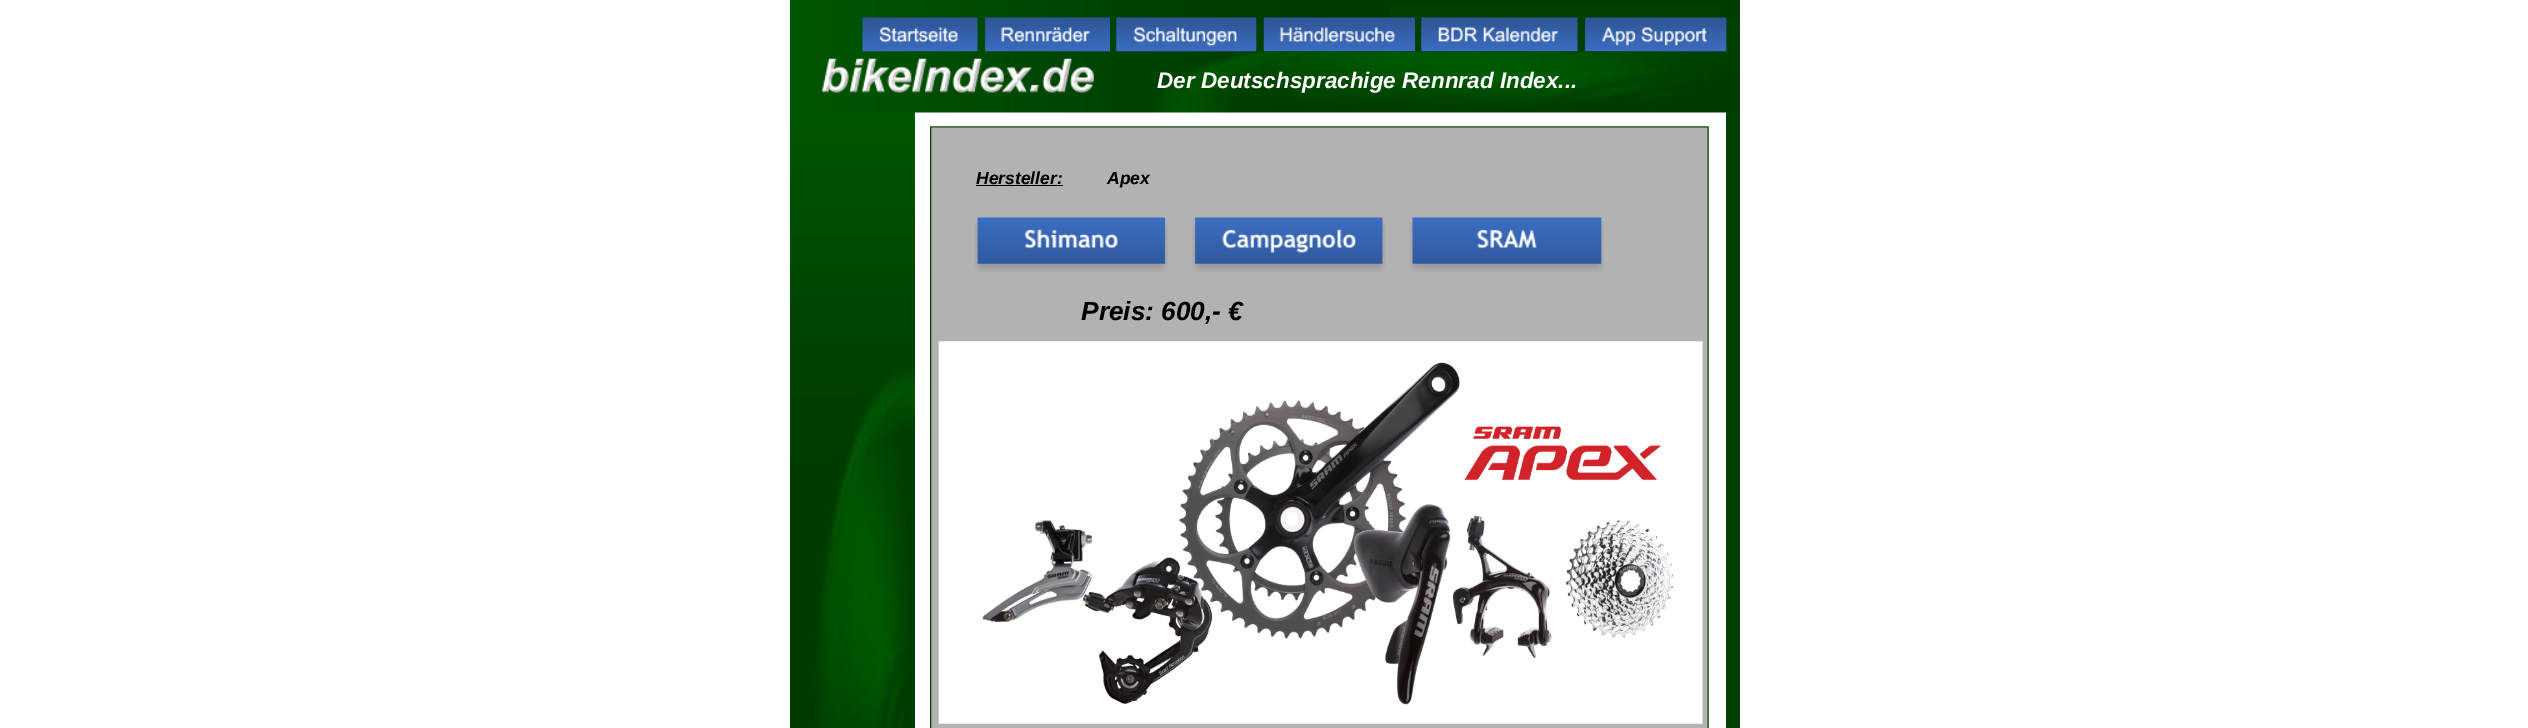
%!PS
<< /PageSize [2528 728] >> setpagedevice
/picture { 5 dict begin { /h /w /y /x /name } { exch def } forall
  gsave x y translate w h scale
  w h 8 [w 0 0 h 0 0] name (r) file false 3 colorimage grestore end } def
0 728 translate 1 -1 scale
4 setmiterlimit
1 setgray
0 0 2528 728 rectfill
(img1.rgb) 790 0 950 113 picture
(img2.rgb) 862 17 116 35 picture
(img3.rgb) 984 17 126 35 picture
0 0.251 0.004 setrgbcolor
1240 25 500 27 rectfill
(img4.rgb) 1116 17 141 35 picture
1389 6 330 19 rectfill
(img5.rgb) 1263 17 152 35 picture
(img6.rgb) 1421 17 157 35 picture
(img7.rgb) 1584 17 143 35 picture
(img8.rgb) 821 58 273 35 picture
/LiberationSans-BoldItalic [22.5 0 0 -22.5 0 0] selectfont
1 setgray
1157 88 moveto (Der Deutschsprachige Rennrad Index...) show
(img9.rgb) 790 112 125 616 picture
(img10.rgb) 930 126 779 602 picture
0 0.251 0.004 setrgbcolor
1726 112 14 616 rectfill
/LiberationSans-BoldItalic [17.5 0 0 -17.5 0 0] selectfont
0 setgray
976 184 moveto (Hersteller:) show
976 185 87 1 rectfill
1107 184 moveto (Apex) show
(img11.rgb) 974 217 194 55 picture
(img12.rgb) 1192 217 194 55 picture
(img13.rgb) 1409 217 195 55 picture
/LiberationSans-BoldItalic [26.25 0 0 -26.25 0 0] selectfont
1081 320 moveto (Preis: 600,- €) show
(img14.rgb) 938 341 765 383 picture
showpage
